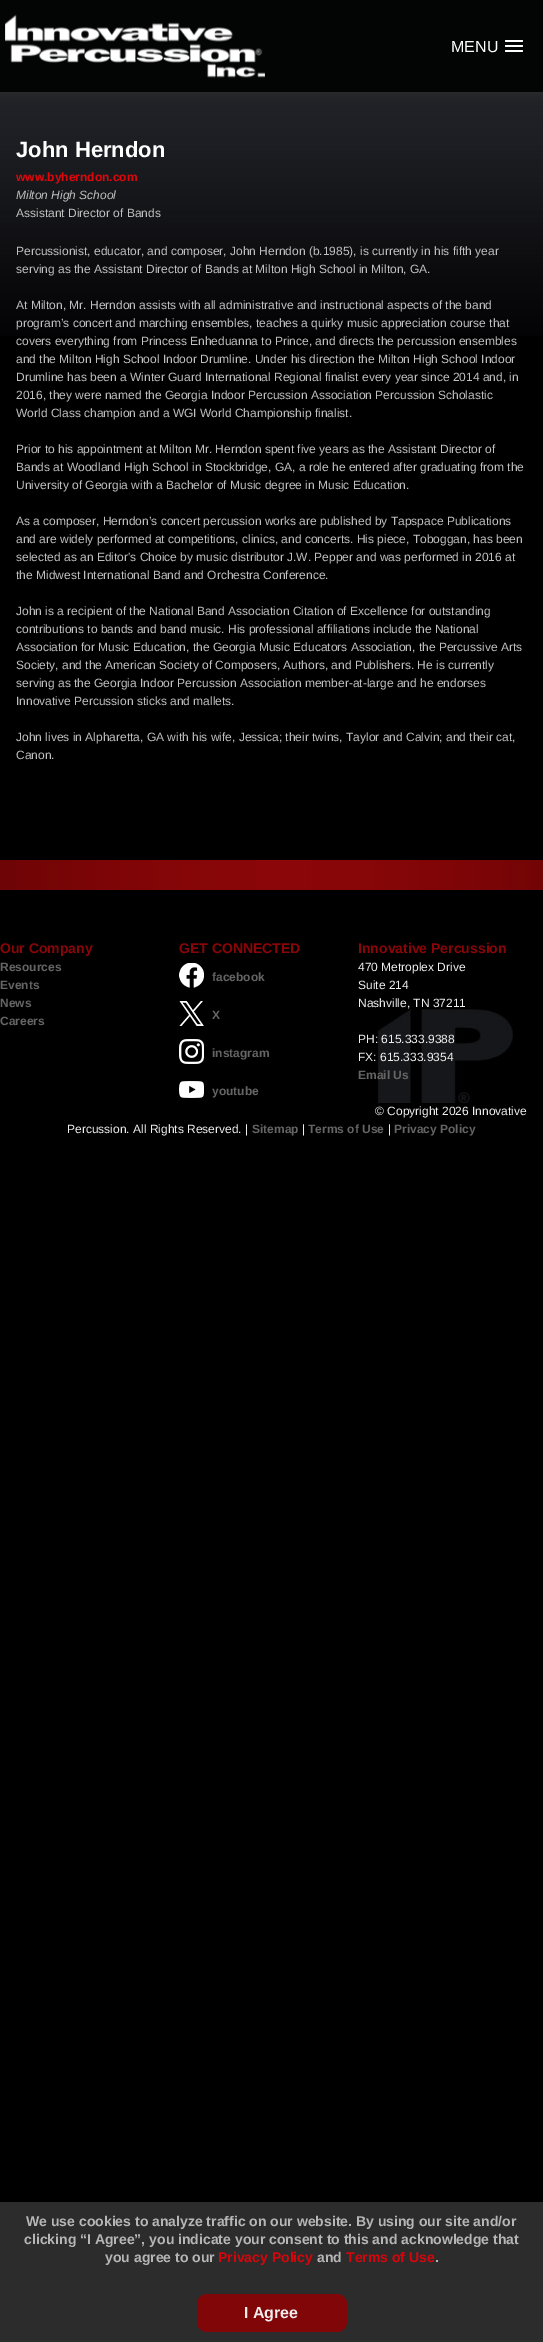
%!PS
<< /PageSize [543 2342] /PageUsesTransparency true >> setpagedevice
/alpha { dup .setfillconstantalpha .setstrokeconstantalpha } def
/roundrect { 5 dict begin { /r /h /w /y /x } { exch def } forall
  x r add y moveto x w add y 2 copy h add r arct x w add y h add x 1 index r arct
  x y h add x y r arct x y 2 copy exch w add exch r arct closepath end } def
/shadow { 12 dict begin { /a /b /q /h /w /y /x } { exch def } forall gsave /was 0 def
  9 -2 -9 { dup b mul 4 div /e exch def 1 sub .425 mul 2.718 exch exp 1 add a .99 .min exch div /now exch def
    1 1 now sub 1 was sub div sub alpha /was now def
    w h .min e 2 mul add 0 gt { x e sub y e sub w e 2 mul add h e 2 mul add
      q e add b .6 mul add w h .min 2 div e add .min 0 .max roundrect fill } if } for grestore end } def
/picture { 5 dict begin { /h /w /y /x /name } { exch def } forall
  gsave x y translate w h scale
  w h 8 [w 0 0 h 0 0] name (r) file false 3 colorimage grestore end } def
0 .pushpdf14devicefilter
0 2342 translate 1 -1 scale
4 setmiterlimit
0 setgray
0 0 543 2342 rectfill
(img2.rgb) 0 92 543 244 picture
0.2 setgray
0 0 543 92 0 5 1 shadow
0.012 0.016 0.016 setrgbcolor
0 0 543 92 rectfill
(img1.rgb) 5 14 260 64 picture
/LiberationSans-Regular [16 0 0 -16 0 0] selectfont
1 setgray
451 52 moveto (MENU) show
505 40 18 2 1 roundrect fill
505 45 18 2 1 roundrect fill
505 50 18 2 1 roundrect fill
/LiberationSans-Bold [22 0 0 -22 0 0] selectfont
16 157 moveto (John Herndon) show
/LiberationSans-Bold [12 0 0 -12 0 0] selectfont
0.875 0.024 0.047 setrgbcolor
16 181 moveto (www.byherndon.com) show
/LiberationSans-Italic [12 0 0 -12 0 0] selectfont
0.753 setgray
16 199 moveto (Milton High School) show
/LiberationSans-Regular [12 0 0 -12 0 0] selectfont
16 217 moveto (Assistant Director of Bands) show
16 255 moveto (Percussionist, educator, and composer, John Herndon \(b.1985\), is currently in his fifth year) show
16 273 moveto (serving as the Assistant Director of Bands at Milton High School in Milton, GA.) show
16 309 moveto (At Milton, Mr. Herndon assists with all administrative and instructional aspects of the band) show
16 327 moveto (program’s concert and marching ensembles, teaches a quirky music appreciation course that) show
16 345 moveto (covers everything from Princess Enheduanna to Prince, and directs the percussion ensembles) show
16 363 moveto (and the Milton High School Indoor Drumline. Under his direction the Milton High School Indoor) show
16 381 moveto (Drumline has been a Winter Guard International Regional finalist every year since 2014 and, in) show
16 399 moveto (2016, they were named the Georgia Indoor Percussion Association Percussion Scholastic) show
16 417 moveto (World Class champion and a WGI World Championship finalist.) show
16 453 moveto (Prior to his appointment at Milton Mr. Herndon spent five years as the Assistant Director of) show
16 471 moveto (Bands at Woodland High School in Stockbridge, GA, a role he entered after graduating from the) show
16 489 moveto (University of Georgia with a Bachelor of Music degree in Music Education.) show
16 525 moveto (As a composer, Herndon’s concert percussion works are published by Tapspace Publications) show
16 543 moveto (and are widely performed at competitions, clinics, and concerts. His piece, Toboggan, has been) show
16 561 moveto (selected as an Editor's Choice by music distributor J.W. Pepper and was performed in 2016 at) show
16 579 moveto (the Midwest International Band and Orchestra Conference.) show
16 615 moveto (John is a recipient of the National Band Association Citation of Excellence for outstanding) show
16 633 moveto (contributions to bands and band music. His professional affiliations include the National) show
16 651 moveto (Association for Music Education, the Georgia Music Educators Association, the Percussive Arts) show
16 669 moveto (Society, and the American Society of Composers, Authors, and Publishers. He is currently) show
16 687 moveto (serving as the Georgia Indoor Percussion Association member-at-large and he endorses) show
16 705 moveto (Innovative Percussion sticks and mallets.) show
16 741 moveto (John lives in Alpharetta, GA with his wife, Jessica; their twins, Taylor and Calvin; and their cat,) show
16 759 moveto (Canon.) show
(img3.rgb) 0 860 543 30 picture
(img4.rgb) 377 1009 136 94 picture
/LiberationSans-Bold [14 0 0 -14 0 0] selectfont
0.541 0.02 0.031 setrgbcolor
0 953 moveto (Our Company) show
/LiberationSans-Bold [12 0 0 -12 0 0] selectfont
0.396 setgray
0 971 moveto (Resources) show
0 989 moveto (Events) show
0 1007 moveto (News) show
0 1025 moveto (Careers) show
/LiberationSans-Bold [14 0 0 -14 0 0] selectfont
0.541 0.02 0.031 setrgbcolor
179 953 moveto (GET CONNECTED) show
(img5.rgb) 179 963 25 25 picture
/LiberationSans-Bold [12 0 0 -12 0 0] selectfont
0.396 setgray
212 981 moveto (facebook) show
(img6.rgb) 179 1001 25 25 picture
212 1019 moveto (X) show
(img7.rgb) 179 1039 25 25 picture
212 1057 moveto (instagram) show
(img8.rgb) 179 1081 25 17 picture
212 1095 moveto (youtube) show
/LiberationSans-Bold [14 0 0 -14 0 0] selectfont
0.541 0.02 0.031 setrgbcolor
358 953 moveto (Innovative Percussion) show
/LiberationSans-Regular [12 0 0 -12 0 0] selectfont
0.933 setgray
358 971 moveto (470 Metroplex Drive) show
358 989 moveto (Suite 214) show
358 1007 moveto (Nashville, TN 37211) show
358 1043 moveto (PH: 615.333.9388) show
358 1061 moveto (FX: 615.333.9354) show
/LiberationSans-Bold [12 0 0 -12 0 0] selectfont
0.396 setgray
358 1079 moveto (Email Us) show
/LiberationSans-Regular [12 0 0 -12 0 0] selectfont
0.933 setgray
375 1115 moveto (© Copyright 2026 Innovative) show
67 1133 moveto (Percussion. All Rights Reserved. |) show
/LiberationSans-Bold [12 0 0 -12 0 0] selectfont
0.396 setgray
252 1133 moveto (Sitemap) show
/LiberationSans-Regular [12 0 0 -12 0 0] selectfont
0.933 setgray
302 1133 moveto (|) show
/LiberationSans-Bold [12 0 0 -12 0 0] selectfont
0.396 setgray
308 1133 moveto (Terms of Use) show
/LiberationSans-Regular [12 0 0 -12 0 0] selectfont
0.933 setgray
388 1133 moveto (|) show
/LiberationSans-Bold [12 0 0 -12 0 0] selectfont
0.396 setgray
394 1133 moveto (Privacy Policy) show
0.173 setgray
0 2202 543 140 rectfill
/LiberationSans-Bold [14 0 0 -14 0 0] selectfont
0.714 setgray
26 2226 moveto (We use cookies to analyze traffic on our website. By using our site and/or) show
24 2244 moveto (clicking “I Agree”, you indicate your consent to this and acknowledge that) show
105 2262 moveto (you agree to our) show
0.831 0.024 0.043 setrgbcolor
218 2262 moveto (Privacy Policy) show
0.714 setgray
317 2262 moveto (and) show
0.831 0.024 0.043 setrgbcolor
346 2262 moveto (Terms of Use) show
0.714 setgray
435 2262 moveto (.) show
0.506 0.024 0.031 setrgbcolor
197 2294 150 38 10 roundrect fill
/LiberationSans-Bold [16 0 0 -16 0 0] selectfont
0.933 setgray
244 2318 moveto (I Agree) show
.poppdf14devicefilter showpage
